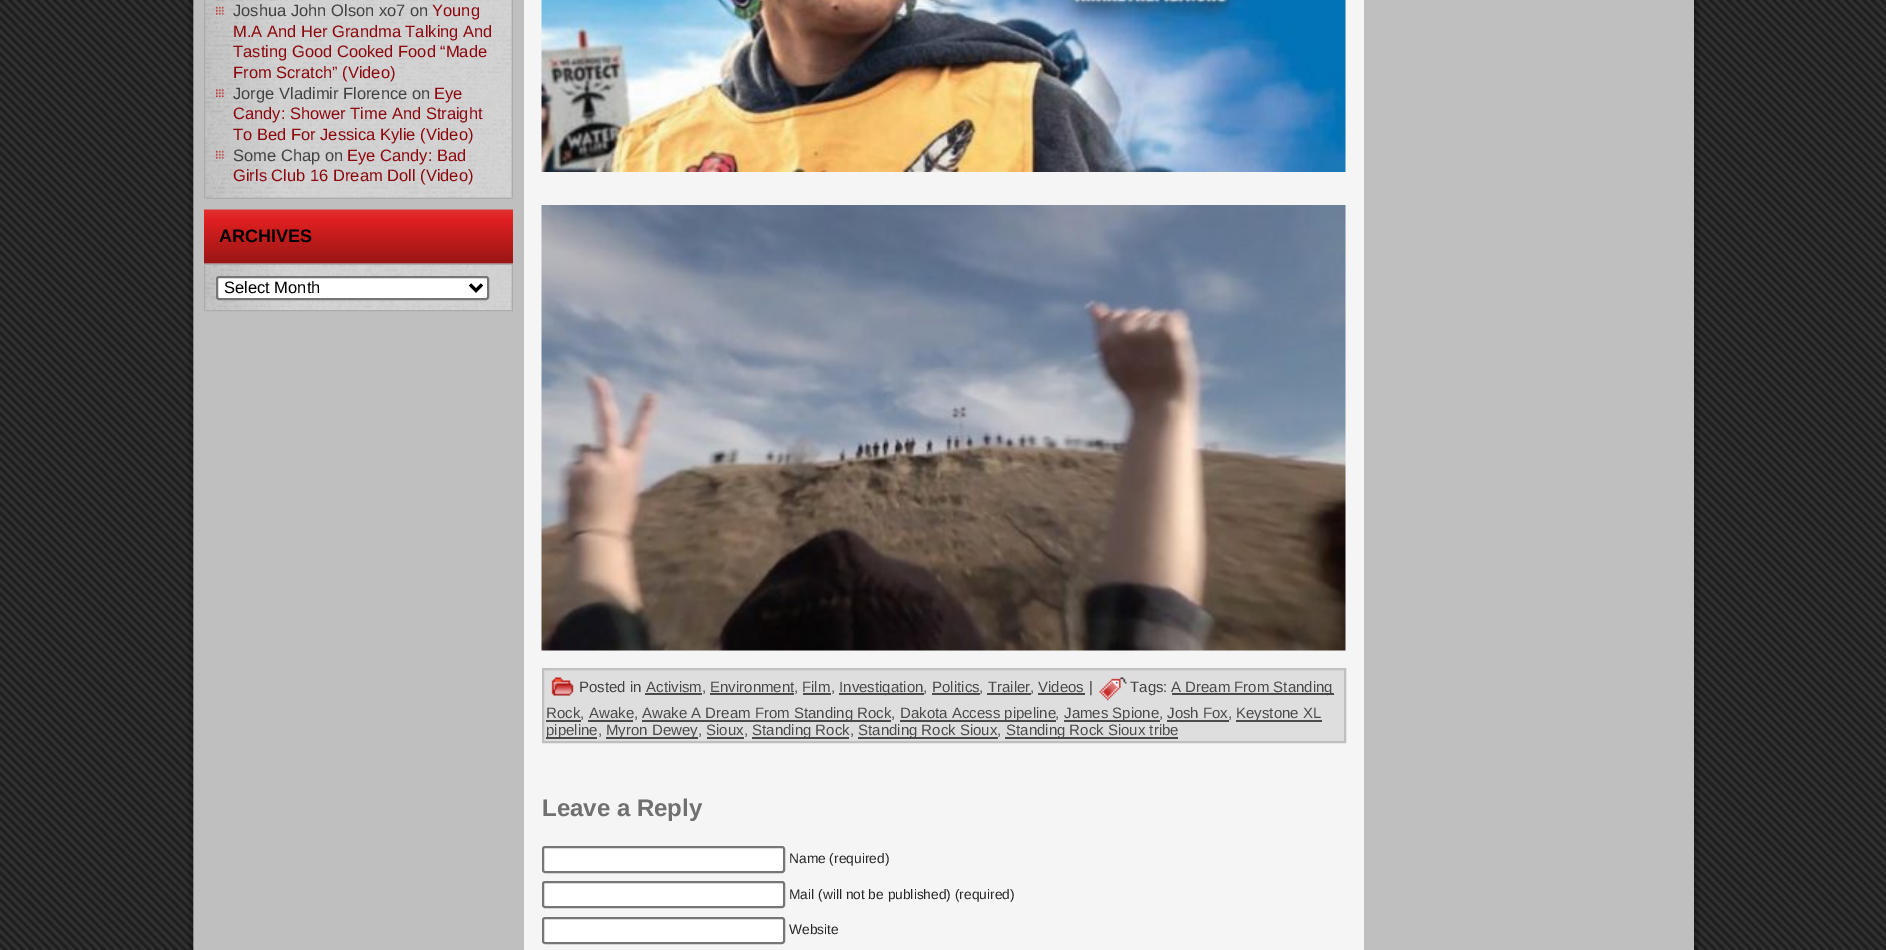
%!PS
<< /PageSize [1886 950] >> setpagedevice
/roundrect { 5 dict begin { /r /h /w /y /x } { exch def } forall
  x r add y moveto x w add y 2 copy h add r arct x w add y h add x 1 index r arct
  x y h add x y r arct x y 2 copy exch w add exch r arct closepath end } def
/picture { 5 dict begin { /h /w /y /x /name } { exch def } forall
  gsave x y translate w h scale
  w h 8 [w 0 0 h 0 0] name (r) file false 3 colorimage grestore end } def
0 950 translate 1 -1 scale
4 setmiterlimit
1 setgray
0 0 1886 950 rectfill
(img1.rgb) 0 0 1886 950 picture
(img2.rgb) 188 0 6 950 picture
0.961 setgray
524 0 840 950 rectfill
(img3.rgb) 1694 0 6 950 picture
0.749 setgray
194 0 330 950 rectfill
(img4.rgb) 204 0 2 197 picture
(img9.rgb) 511 0 2 197 picture
(img10.rgb) 204 197 2 2 picture
(img11.rgb) 206 197 305 2 picture
(img12.rgb) 511 197 2 2 picture
(img5.rgb) 205 0 307 198 picture
(img6.rgb) 216 6 8 9 picture
/LiberationSans-Regular [16.5 0 0 -16.5 0 0] selectfont
0.259 setgray
233 16 moveto (Joshua John Olson xo7 on) show
0.553 0.027 0.055 setrgbcolor
432 16 moveto (Young) show
233 37 moveto (M.A And Her Grandma Talking And) show
233 57 moveto (Tasting Good Cooked Food “Made) show
233 78 moveto (From Scratch” \(Video\)) show
(img7.rgb) 216 89 8 8 picture
0.259 setgray
233 99 moveto (Jorge Vladimir Florence on) show
0.553 0.027 0.055 setrgbcolor
434 99 moveto (Eye) show
233 119 moveto (Candy: Shower Time And Straight) show
233 140 moveto (To Bed For Jessica Kylie \(Video\)) show
(img8.rgb) 216 150 8 9 picture
0.259 setgray
233 161 moveto (Some Chap on) show
0.553 0.027 0.055 setrgbcolor
347 161 moveto (Eye Candy: Bad) show
233 181 moveto (Girls Club 16 Dream Doll \(Video\)) show
(img13.rgb) 204 209 309 55 picture
/LiberationSans-Bold [18 0 0 -18 0 0] selectfont
0 setgray
219 242 moveto (ARCHIVES) show
(img14.rgb) 204 263 2 2 picture
(img15.rgb) 206 263 305 2 picture
(img16.rgb) 511 263 2 2 picture
(img17.rgb) 204 265 2 45 picture
(img19.rgb) 511 265 2 45 picture
(img18.rgb) 205 265 307 45 picture
1 setgray
217 277 271 22 2 roundrect gsave fill grestore
0.463 setgray
2 setlinewidth
stroke
0 setgray
3 setlinewidth
newpath 470 284.5 moveto 476 290.5 lineto 482 284.5 lineto stroke
/LiberationSans-Regular [16.5 0 0 -16.5 0 0] selectfont
224 293 moveto (Select Month) show
(img20.rgb) 204 310 2 2 picture
(img21.rgb) 206 310 305 2 picture
(img22.rgb) 511 310 2 2 picture
0.749 setgray
1364 0 330 950 rectfill
(img23.rgb) 541 0 805 172 picture
(img24.rgb) 541 205 805 446 picture
0.871 setgray
newpath 543 669 moveto 1345 669 lineto 1345 742 lineto 543 742 lineto closepath gsave fill grestore
0.749 setgray
2 setlinewidth
stroke
(img25.rgb) 551 677 23 19 picture
/LiberationSans-Regular [15 0 0 -15 0 0] selectfont
0.259 setgray
579 692 moveto (Posted in) show
0.29 setgray
646 692 moveto (Activism) show
645 693 57 2 rectfill
0.259 setgray
702 692 moveto (,) show
0.29 setgray
710 692 moveto (Environment) show
710 693 84 2 rectfill
0.259 setgray
794 692 moveto (,) show
0.29 setgray
802 692 moveto (Film) show
803 693 28 2 rectfill
0.259 setgray
831 692 moveto (,) show
0.29 setgray
839 693 85 2 rectfill
839 692 moveto (Investigation) show
0.259 setgray
923 692 moveto (,) show
0.29 setgray
932 692 moveto (Politics) show
932 693 48 2 rectfill
0.259 setgray
979 692 moveto (,) show
0.29 setgray
988 692 moveto (Trailer) show
987 693 44 2 rectfill
0.259 setgray
1030 692 moveto (,) show
0.29 setgray
1038 692 moveto (Videos) show
1038 693 47 2 rectfill
0.259 setgray
1089 692 moveto (|) show
(img26.rgb) 1099 677 28 24 picture
1130 692 moveto (Tags:) show
0.29 setgray
1172 693 162 2 rectfill
1171 692 moveto (A Dream From Standing) show
546 718 moveto (Rock) show
546 720 35 2 rectfill
0.259 setgray
580 718 moveto (,) show
0.29 setgray
589 718 moveto (Awake) show
588 720 45 2 rectfill
0.259 setgray
634 718 moveto (,) show
0.29 setgray
642 720 249 2 rectfill
642 718 moveto (Awake A Dream From Standing Rock) show
0.259 setgray
891 718 moveto (,) show
0.29 setgray
900 720 156 2 rectfill
900 718 moveto (Dakota Access pipeline) show
0.259 setgray
1055 718 moveto (,) show
0.29 setgray
1064 720 96 2 rectfill
1064 718 moveto (James Spione) show
0.259 setgray
1159 718 moveto (,) show
0.29 setgray
1167 718 moveto (Josh Fox) show
1167 720 62 2 rectfill
0.259 setgray
1228 718 moveto (,) show
0.29 setgray
1236 720 86 2 rectfill
1236 718 moveto (Keystone XL) show
546 737 51 2 rectfill
546 735 moveto (pipeline) show
0.259 setgray
598 735 moveto (,) show
0.29 setgray
606 737 92 2 rectfill
606 735 moveto (Myron Dewey) show
0.259 setgray
698 735 moveto (,) show
0.29 setgray
706 735 moveto (Sioux) show
707 737 37 2 rectfill
0.259 setgray
744 735 moveto (,) show
0.29 setgray
752 737 97 2 rectfill
752 735 moveto (Standing Rock) show
0.259 setgray
850 735 moveto (,) show
0.29 setgray
858 737 140 2 rectfill
858 735 moveto (Standing Rock Sioux) show
0.259 setgray
997 735 moveto (,) show
0.29 setgray
1005 737 173 2 rectfill
1006 735 moveto (Standing Rock Sioux tribe) show
/LiberationSans-Bold [24 0 0 -24 0 0] selectfont
0.439 setgray
542 816 moveto (Leave a Reply) show
1 setgray
543 847 241 25 2 roundrect gsave fill grestore
0.463 setgray
stroke
/LiberationSans-Regular [13.75 0 0 -13.75 0 0] selectfont
0.149 setgray
789 863 moveto (Name \(required\)) show
1 setgray
543 882 241 25 2 roundrect gsave fill grestore
0.463 setgray
stroke
0.149 setgray
789 899 moveto (Mail \(will not be published\) \(required\)) show
1 setgray
543 918 241 25 2 roundrect gsave fill grestore
0.463 setgray
stroke
0.149 setgray
789 934 moveto (Website) show
showpage
